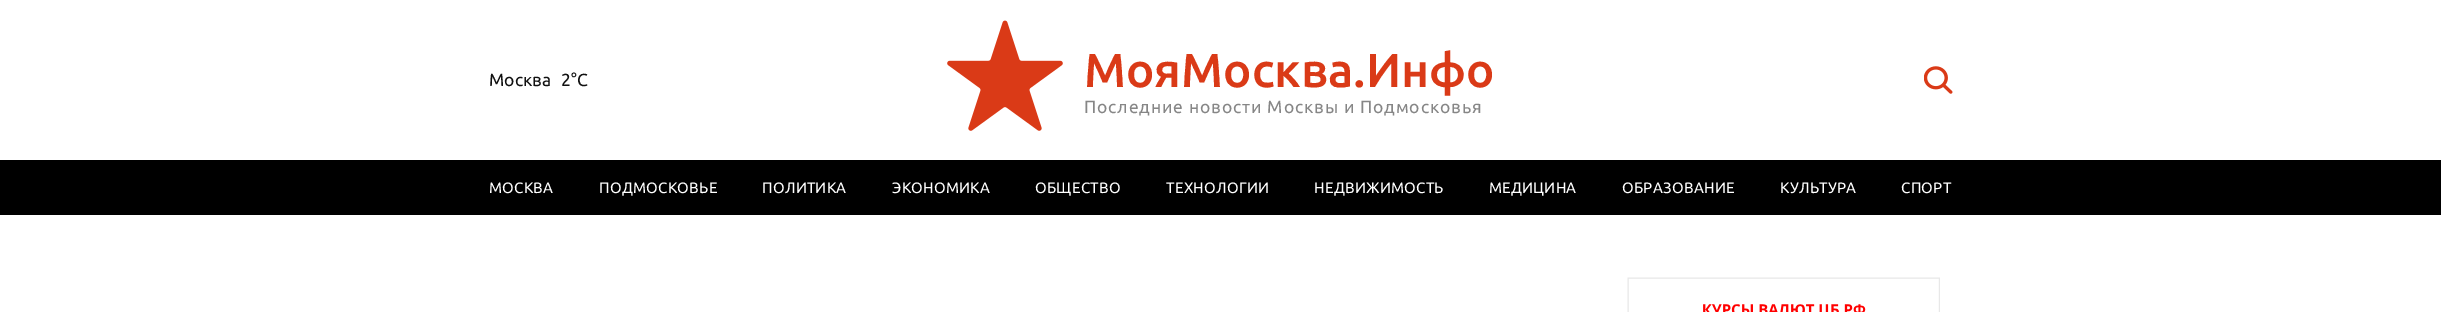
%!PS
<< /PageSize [2441 312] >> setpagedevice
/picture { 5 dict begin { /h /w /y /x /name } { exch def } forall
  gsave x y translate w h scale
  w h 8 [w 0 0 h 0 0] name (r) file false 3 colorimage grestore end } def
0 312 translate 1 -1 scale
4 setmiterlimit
1 setgray
0 0 2441 312 rectfill
/Ubuntu-Regular [17.5 0 0 -17.5 0 0] selectfont
0.067 setgray
489 86 moveto (Москва) show
561 86 moveto (2°C) show
(img1.rgb) 947 20 116 111 picture
/Ubuntu-Medium [47.5 0 0 -47.5 0 0] selectfont
0.855 0.227 0.09 setrgbcolor
1084 87 moveto (МояМосква.Инфо) show
/Ubuntu-Regular [17.5 0 0 -17.5 0 0] selectfont
0.525 setgray
1084 113 moveto 0.9 0 (Последние новости Москвы и Подмосковья) ashow
(img2.rgb) 1924 66 29 28 picture
0 setgray
0 160 2441 55 rectfill
/Ubuntu-Regular [15 0 0 -15 0 0] selectfont
1 setgray
489 193 moveto 0.25 0 (МОСКВА) ashow
599 193 moveto 0.25 0 (ПОДМОСКОВЬЕ) ashow
762 193 moveto 0.25 0 (ПОЛИТИКА) ashow
892 193 moveto 0.25 0 (ЭКОНОМИКА) ashow
1035 193 moveto 0.25 0 (ОБЩЕСТВО) ashow
1166 193 moveto 0.25 0 (ТЕХНОЛОГИИ) ashow
1314 193 moveto 0.25 0 (НЕДВИЖИМОСТЬ) ashow
1489 193 moveto 0.25 0 (МЕДИЦИНА) ashow
1622 193 moveto 0.25 0 (ОБРАЗОВАНИЕ) ashow
1780 193 moveto 0.25 0 (КУЛЬТУРА) ashow
1901 193 moveto 0.25 0 (СПОРТ) ashow
(img3.rgb) 1627 277 313 35 picture
showpage
